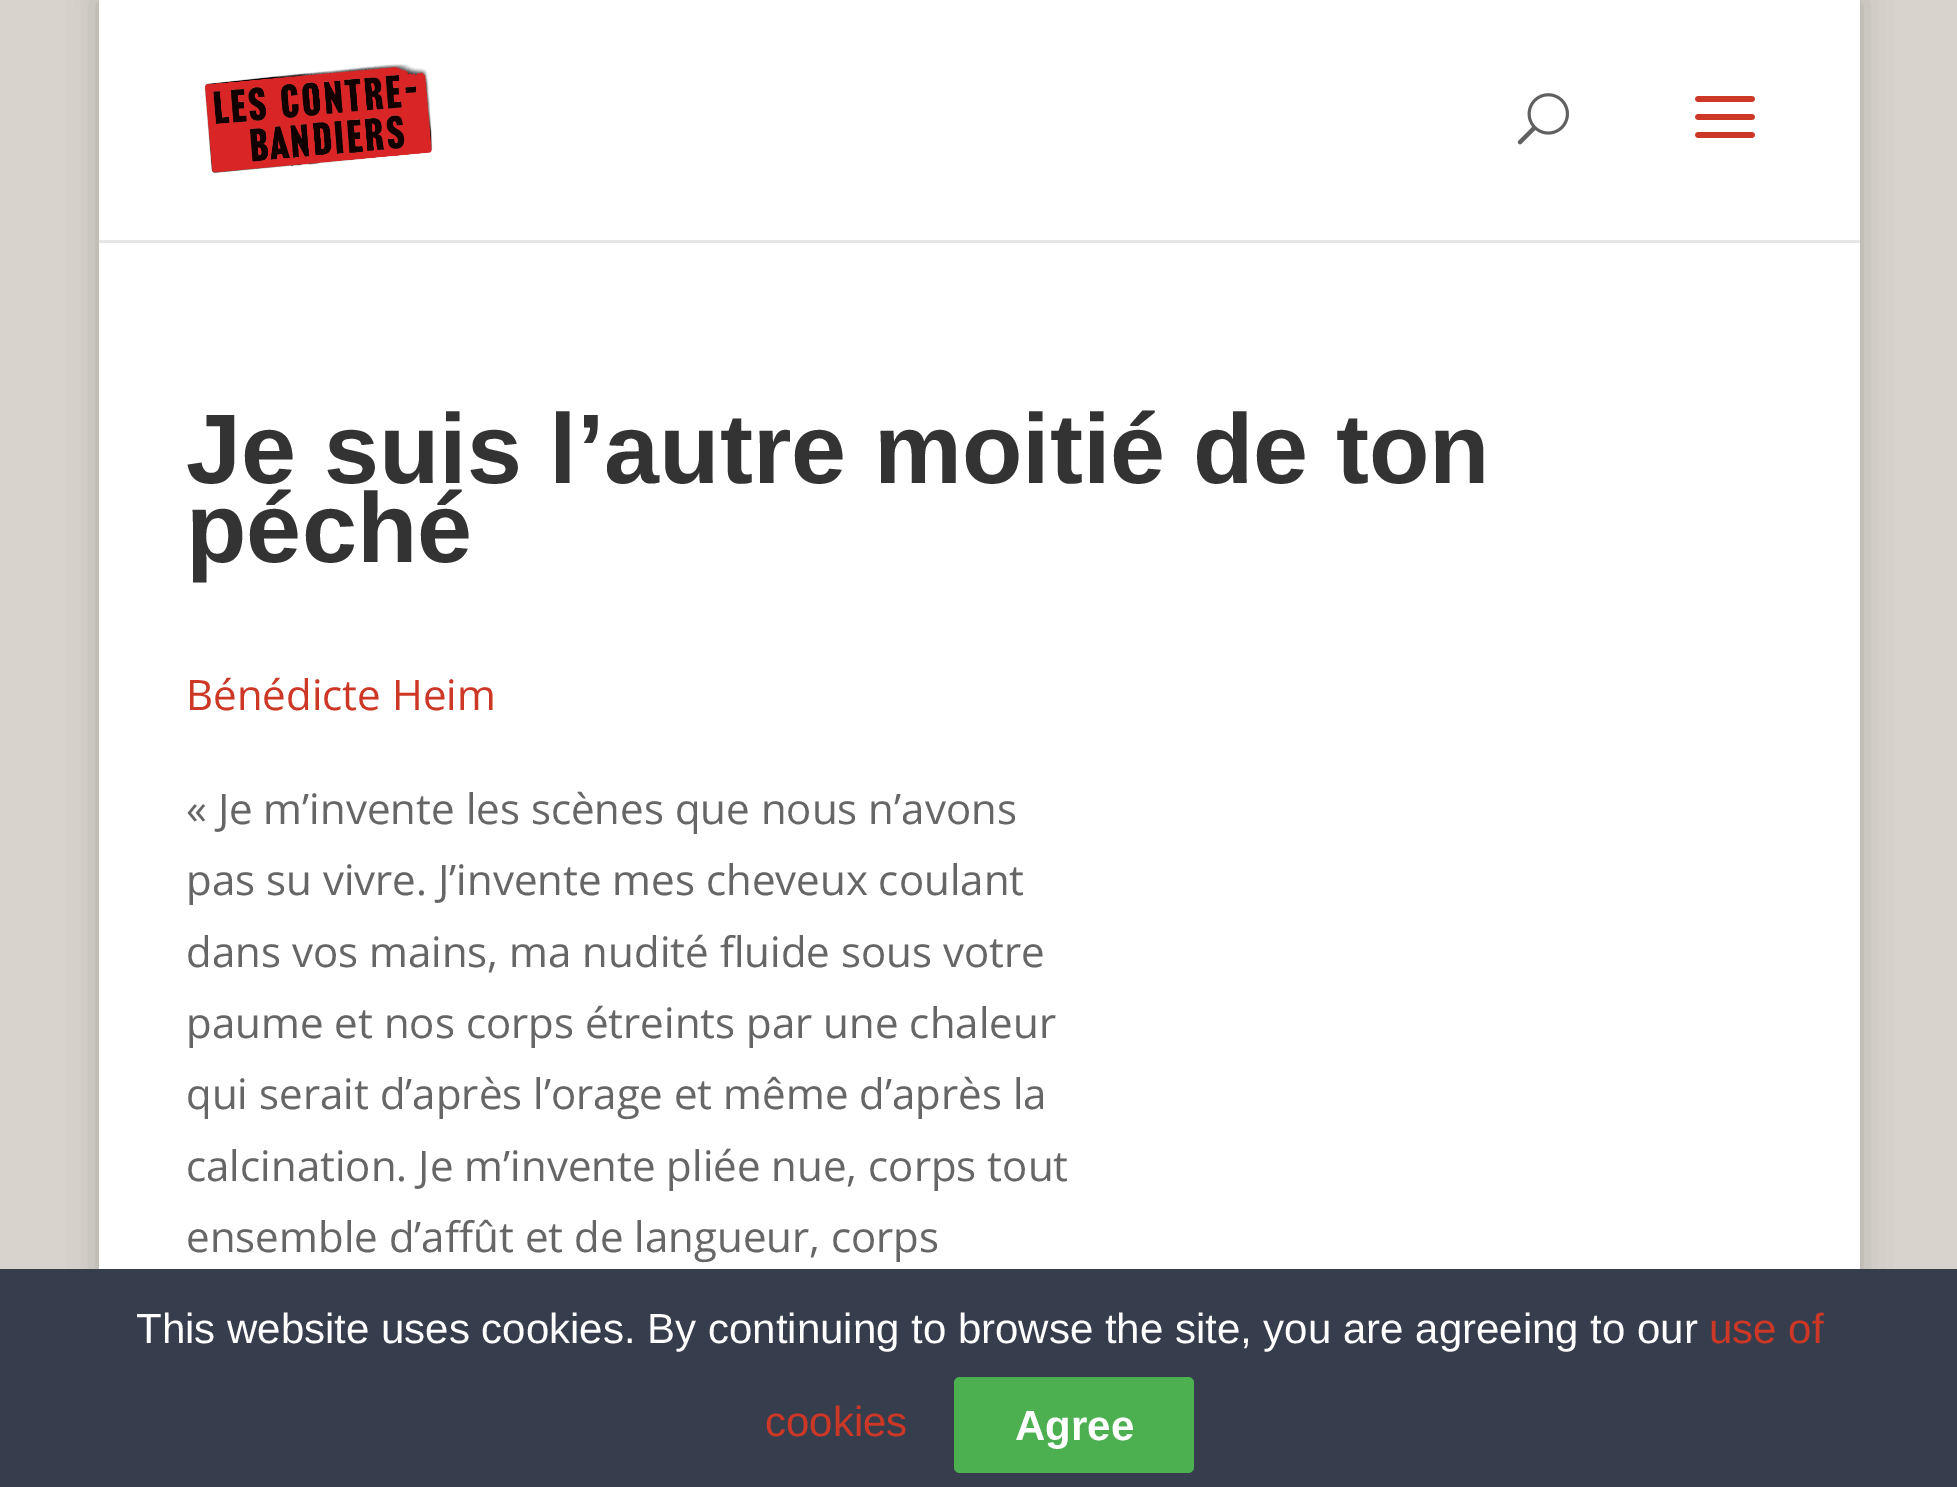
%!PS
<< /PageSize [1957 1487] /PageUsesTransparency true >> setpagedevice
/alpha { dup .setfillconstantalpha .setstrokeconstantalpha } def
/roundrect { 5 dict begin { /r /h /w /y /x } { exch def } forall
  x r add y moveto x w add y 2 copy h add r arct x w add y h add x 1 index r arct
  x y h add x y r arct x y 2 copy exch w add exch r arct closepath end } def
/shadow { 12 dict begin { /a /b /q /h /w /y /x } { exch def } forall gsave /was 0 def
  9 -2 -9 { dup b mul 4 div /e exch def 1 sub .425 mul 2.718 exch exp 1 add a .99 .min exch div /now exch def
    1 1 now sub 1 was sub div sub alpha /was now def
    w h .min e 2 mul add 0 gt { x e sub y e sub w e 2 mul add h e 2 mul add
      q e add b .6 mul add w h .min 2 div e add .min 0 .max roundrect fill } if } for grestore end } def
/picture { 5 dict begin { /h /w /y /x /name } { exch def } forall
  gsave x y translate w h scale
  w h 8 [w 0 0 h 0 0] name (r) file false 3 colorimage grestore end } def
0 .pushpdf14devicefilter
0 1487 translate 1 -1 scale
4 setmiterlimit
0.847 0.831 0.804 setrgbcolor
0 0 1957 1487 rectfill
0 setgray
99 0 1761 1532 0 15 0.2 shadow
0.902 setgray
99 240 1761 3 rectfill
1 setgray
99 0 1761 240 rectfill
(img1.rgb) 204 63 229 111 picture
(img2.rgb) 1517 93 52 52 picture
(img3.rgb) 1695 96 60 42 picture
99 243 1761 1026 rectfill
/LiberationSans-Bold [99 0 0 -99 0 0] selectfont
0.2 setgray
186 483 moveto (Je suis l’autre moitié de ton) show
186 562 moveto (péché) show
/OpenSans-Regular [42 0 0 -42 0 0] selectfont
0.8 0.216 0.149 setrgbcolor
186 710 moveto (Bénédicte Heim) show
0.4 setgray
186 824 moveto (« Je m’invente les scènes que nous n’avons) show
186 895 moveto (pas su vivre. J’invente mes cheveux coulant) show
186 967 moveto (dans vos mains, ma nudité fluide sous votre) show
186 1038 moveto (paume et nos corps étreints par une chaleur) show
186 1109 moveto (qui serait d’après l’orage et même d’après la) show
186 1181 moveto (calcination. Je m’invente pliée nue, corps tout) show
186 1252 moveto (ensemble d’affût et de langueur, corps) show
0.212 0.239 0.302 setrgbcolor
0 1269 1957 218 rectfill
/LiberationSans-Regular [42 0 0 -42 0 0] selectfont
1 setgray
136 1343 moveto (This website uses cookies. By continuing to browse the site, you are agreeing to our) show
0.8 0.216 0.149 setrgbcolor
1709 1343 moveto (use of) show
765 1436 moveto (cookies) show
0.298 0.686 0.314 setrgbcolor
954 1377 240 96 6 roundrect fill
/LiberationSans-Bold [42 0 0 -42 0 0] selectfont
1 setgray
1015 1440 moveto (Agree) show
.poppdf14devicefilter showpage
